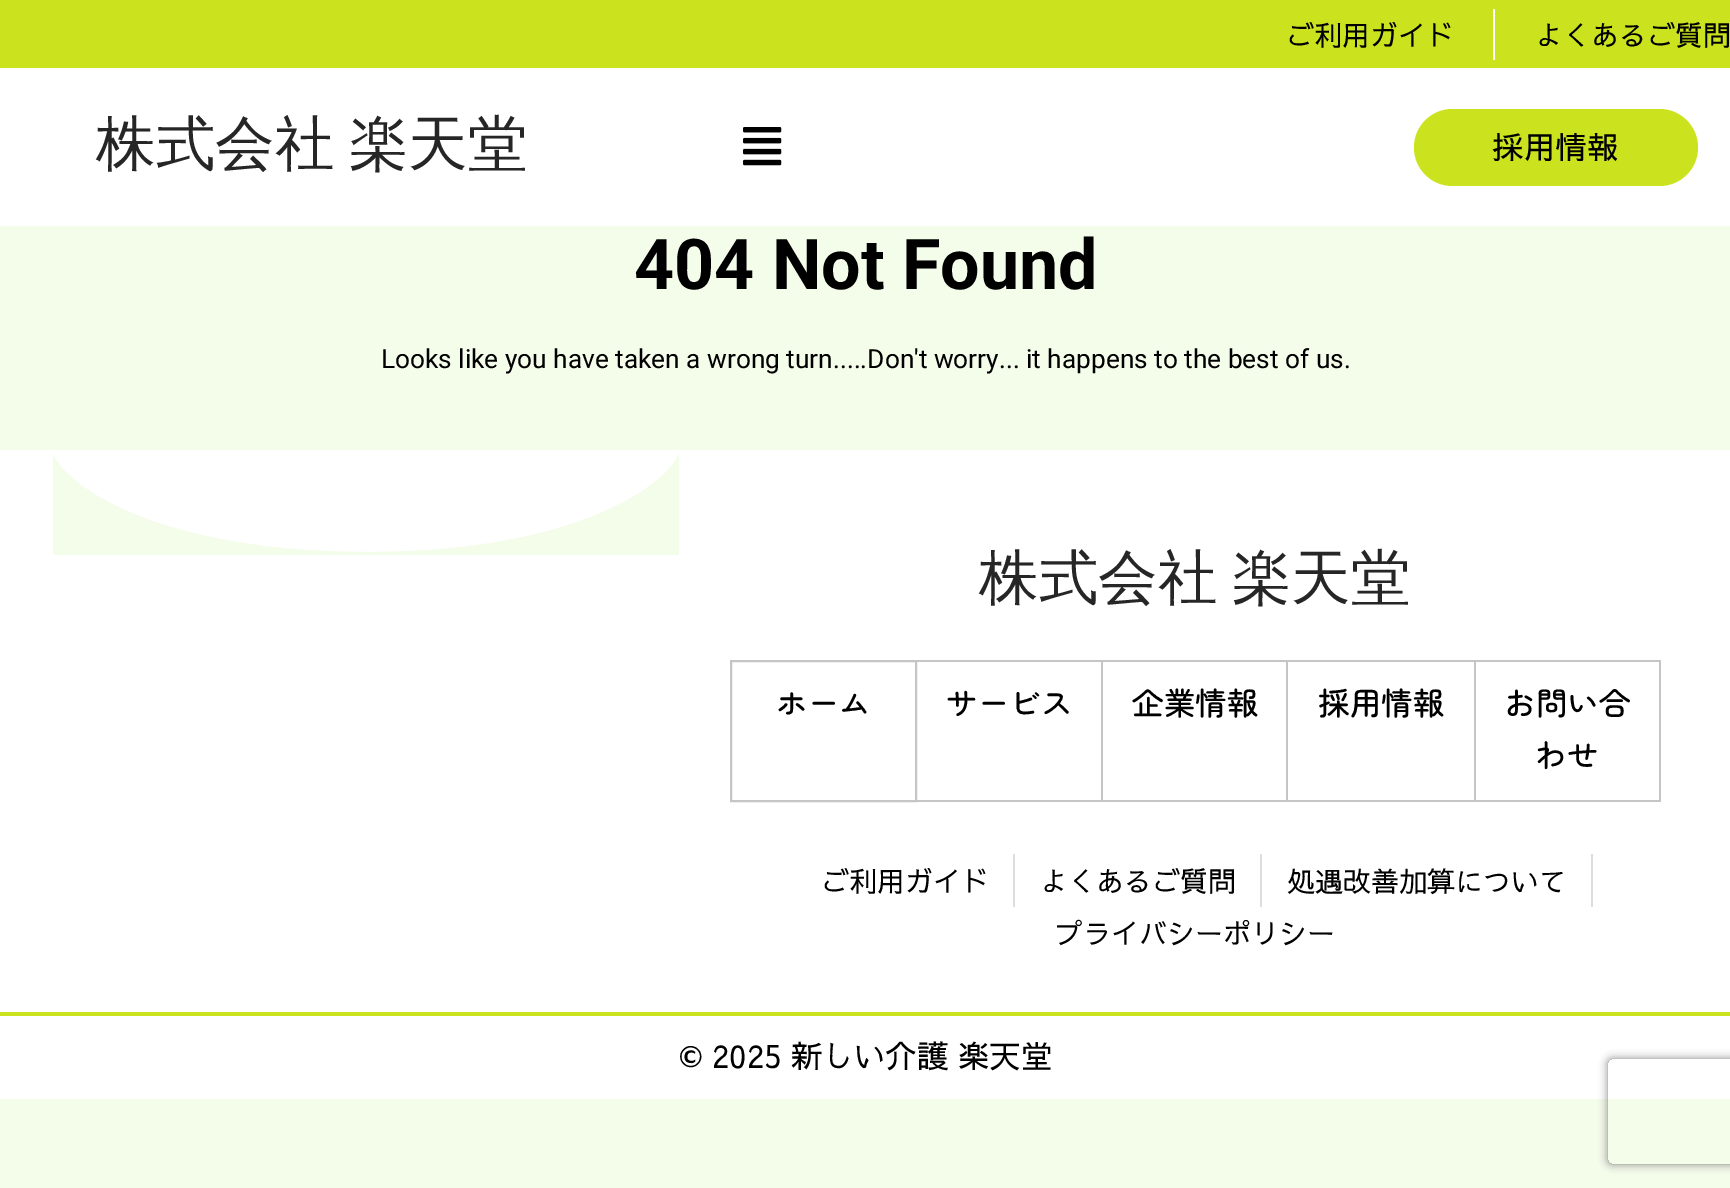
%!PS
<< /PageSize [1730 1188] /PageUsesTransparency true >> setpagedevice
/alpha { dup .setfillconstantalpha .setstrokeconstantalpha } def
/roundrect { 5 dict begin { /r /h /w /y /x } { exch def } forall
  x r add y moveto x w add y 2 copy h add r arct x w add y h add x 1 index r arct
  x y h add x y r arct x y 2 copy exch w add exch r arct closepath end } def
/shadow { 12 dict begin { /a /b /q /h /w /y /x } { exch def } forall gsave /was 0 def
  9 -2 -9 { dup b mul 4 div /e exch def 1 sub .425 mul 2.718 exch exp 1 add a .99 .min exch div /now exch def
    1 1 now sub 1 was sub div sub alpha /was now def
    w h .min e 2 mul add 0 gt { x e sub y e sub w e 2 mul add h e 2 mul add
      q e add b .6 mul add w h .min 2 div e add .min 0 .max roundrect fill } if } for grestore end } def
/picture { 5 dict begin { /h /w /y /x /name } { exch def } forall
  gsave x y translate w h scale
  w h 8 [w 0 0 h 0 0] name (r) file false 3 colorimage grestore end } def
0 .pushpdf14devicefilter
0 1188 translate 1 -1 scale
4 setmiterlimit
0.957 0.988 0.918 setrgbcolor
0 0 1730 1188 rectfill
0.796 0.89 0.118 setrgbcolor
0 0 1730 68 rectfill
/SawarabiGothic-Regular [28 0 0 -28 0 0] selectfont
0 setgray
1286 46 moveto (ご利用ガイド) show
1 setgray
1493 9 2 51 rectfill
0 setgray
1535 46 moveto (よくあるご質問) show
1 setgray
0 68 1730 158 rectfill
/WenQuanYiZenHei-Medium [59.5 0 0 -59.5 0 0] selectfont
0.149 setgray
96 164 moveto -3 0 32 (株式会社 楽天堂) widthshow
(img1.rgb) 743 127 39 39 picture
0.796 0.89 0.118 setrgbcolor
1414 109 284 77 38.5 roundrect fill
/SawarabiGothic-Regular [31.5 0 0 -31.5 0 0] selectfont
0 setgray
1492 159 moveto (採用情報) show
/Roboto-Bold [70 0 0 -70 0 0] selectfont
634 289 moveto (404 Not Found) show
/Roboto-Regular [26.25 0 0 -26.25 0 0] selectfont
381 368 moveto (Looks like you have taken a wrong turn.....Don't worry... it happens to the best of us.) show
1 setgray
0 450 1730 562 rectfill
gsave
53 450 626 105 rectclip
0.957 0.988 0.918 setrgbcolor
newpath 366 552 moveto 132 551 53 471 52 450 curveto 52 555 lineto 679 555 lineto 679 451 lineto 679 470 600 552 366 552 curveto closepath fill
grestore
/WenQuanYiZenHei-Medium [59.5 0 0 -59.5 0 0] selectfont
0.149 setgray
979 598 moveto -3 0 32 (株式会社 楽天堂) widthshow
0.773 setgray
2 setlinewidth
731 661 185 140 rectstroke
/ZenMaruGothic-Medium [31.5 0 0 -31.5 0 0] selectfont
0 setgray
776 715 moveto (ホーム) show
0.773 setgray
917 660 558 2 rectfill
1101 660 2 142 rectfill
917 800 186 2 rectfill
0 setgray
946 715 moveto (サービス) show
0.773 setgray
1286 660 2 142 rectfill
1103 800 185 2 rectfill
0 setgray
1132 715 moveto (企業情報) show
0.773 setgray
1474 660 2 142 rectfill
1288 800 187 2 rectfill
0 setgray
1318 715 moveto (採用情報) show
0.773 setgray
1475 660 186 2 rectfill
1659 660 2 142 rectfill
1475 800 186 2 rectfill
0 setgray
1504 715 moveto (お問い合) show
1535 767 moveto (わせ) show
/SawarabiGothic-Regular [28 0 0 -28 0 0] selectfont
821 892 moveto (ご利用ガイド) show
0.867 setgray
1013 854 2 53 rectfill
0 setgray
1040 892 moveto (よくあるご質問) show
0.867 setgray
1260 854 2 53 rectfill
0 setgray
1287 892 moveto (処遇改善加算について) show
0.867 setgray
1591 854 2 53 rectfill
0 setgray
1055 944 moveto (プライバシーポリシー) show
1 setgray
0 1016 1730 83 rectfill
0.796 0.89 0.118 setrgbcolor
0 1012 1730 4 rectfill
/SawarabiGothic-Regular [31.5 0 0 -31.5 0 0] selectfont
0 setgray
679 1068 moveto (© 2025 新しい介護 楽天堂) show
gsave
newpath 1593 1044 moveto 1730 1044 lineto 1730 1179 lineto 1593 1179 lineto closepath 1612 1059 moveto 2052 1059 lineto 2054 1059 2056 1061 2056 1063 curveto 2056 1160 lineto 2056 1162 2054 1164 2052 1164 curveto 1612 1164 lineto 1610 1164 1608 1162 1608 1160 curveto 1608 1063 lineto 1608 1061 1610 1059 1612 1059 curveto closepath eoclip newpath
0.502 setgray
1608 1059 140 105 4 4.5 1 shadow
grestore
.poppdf14devicefilter showpage
